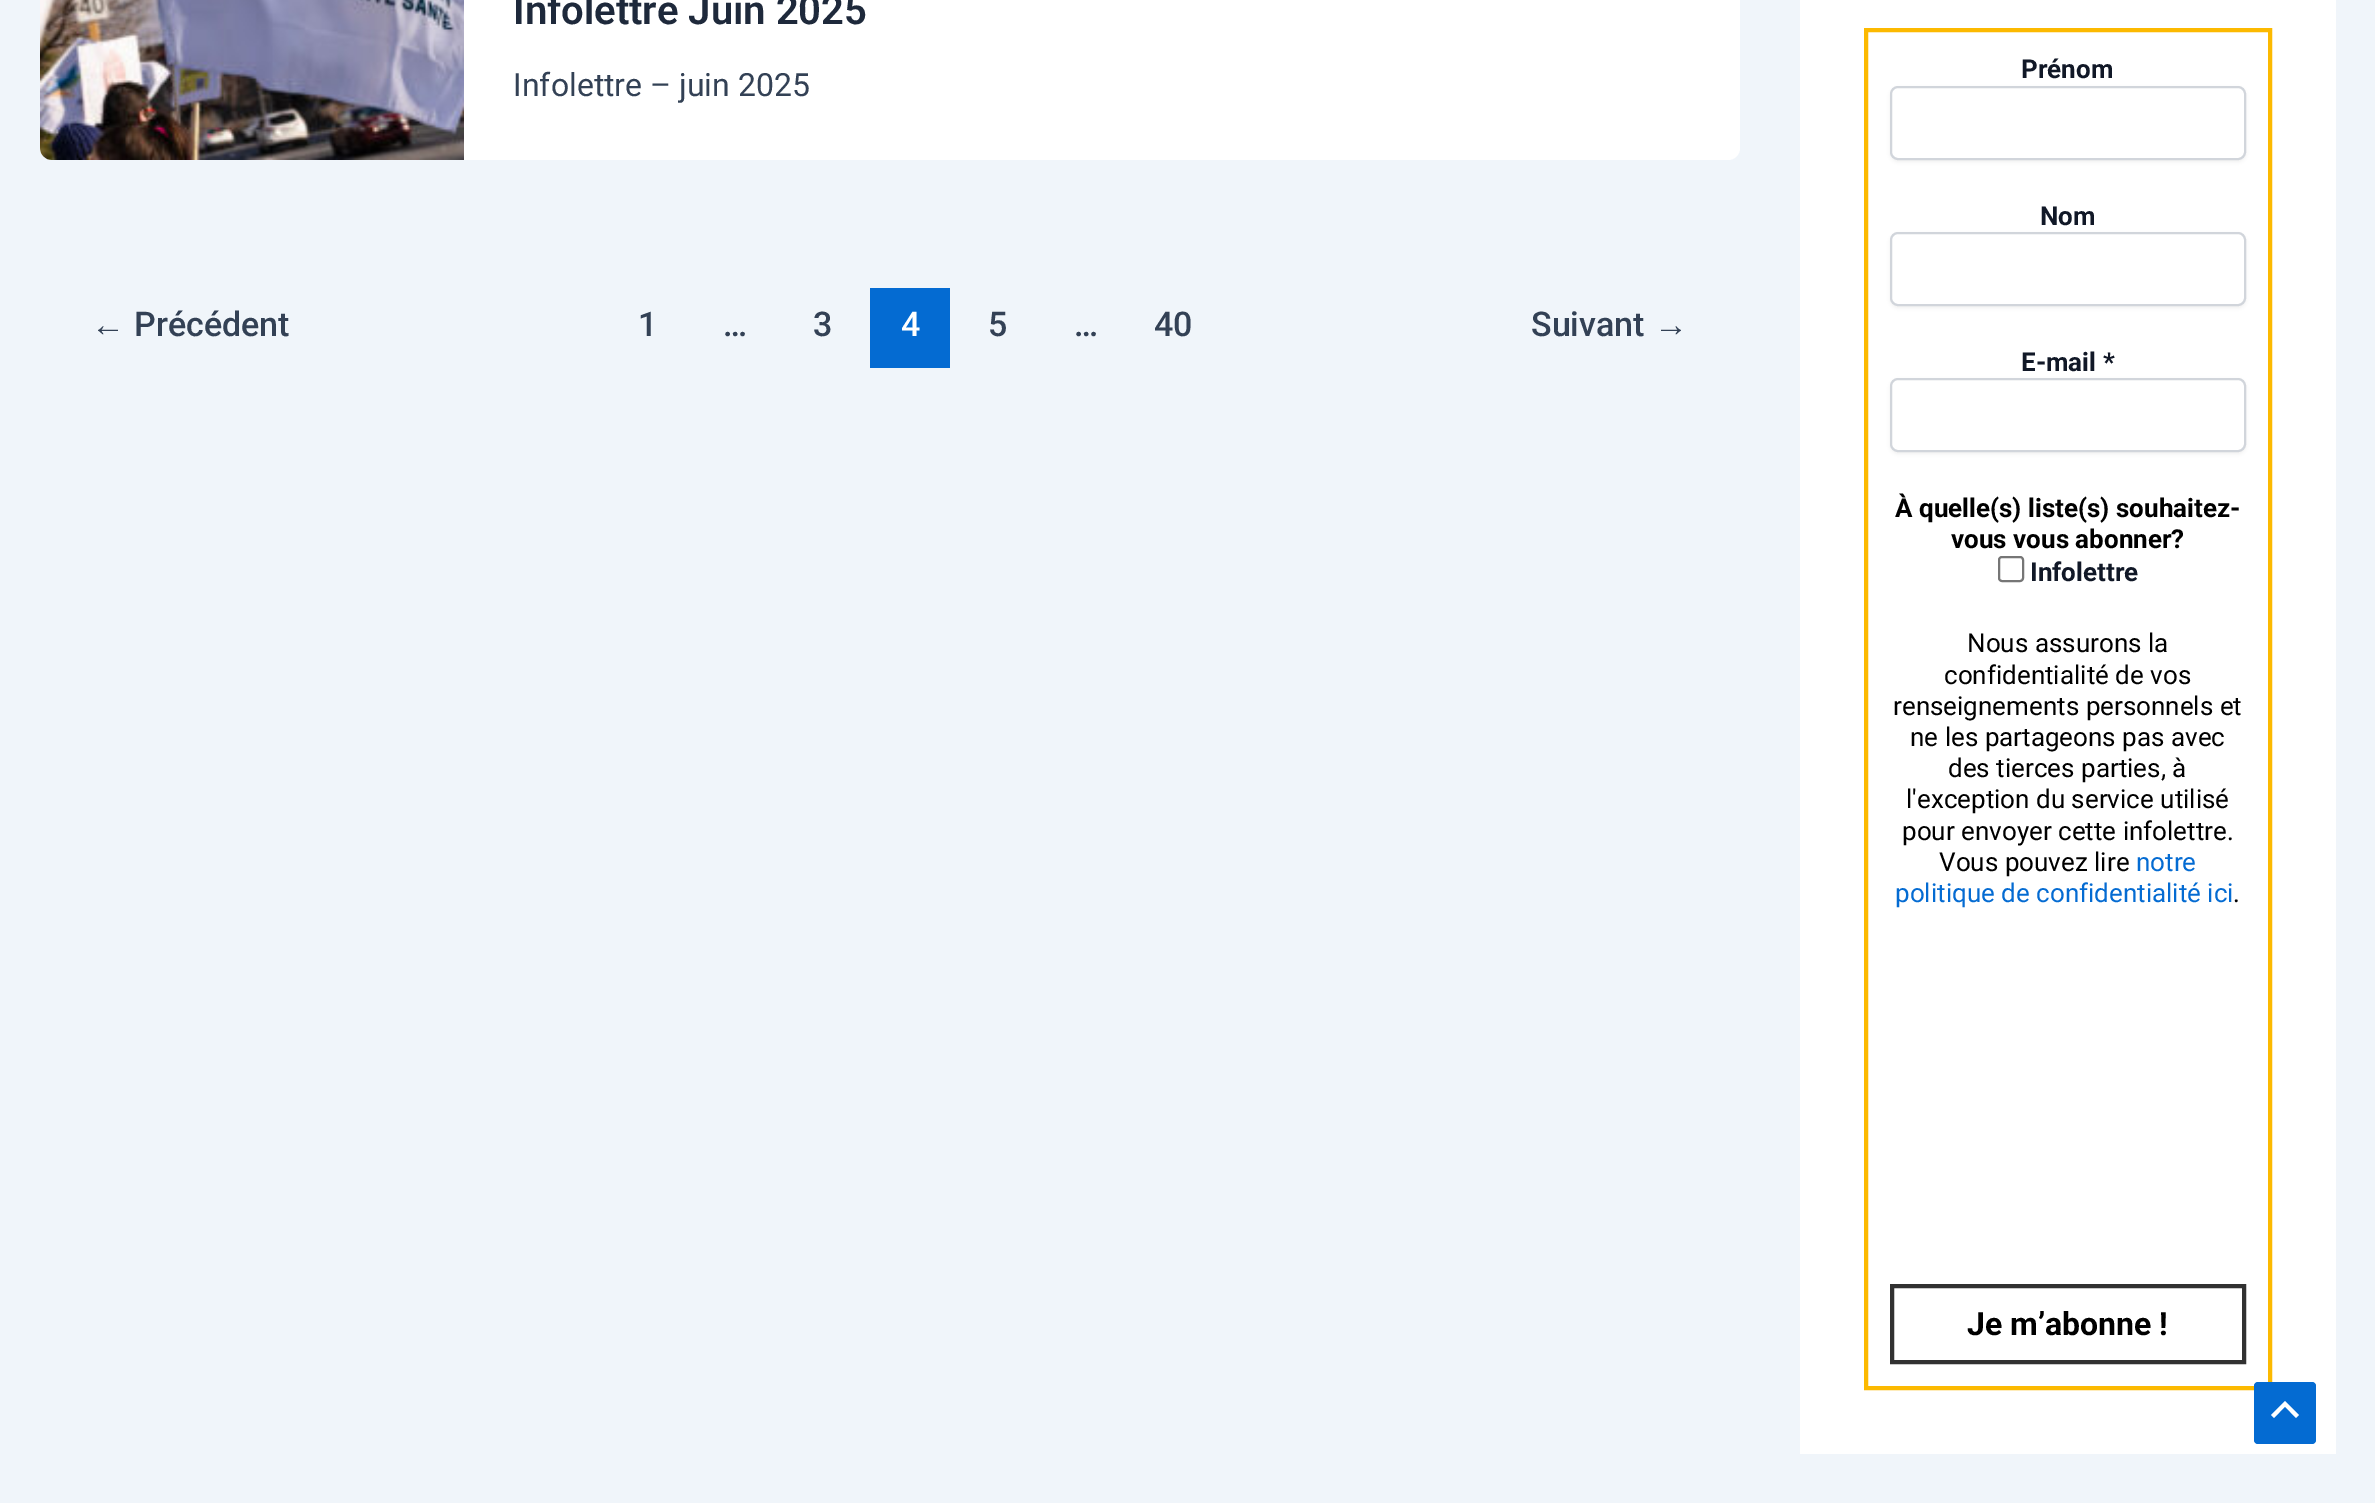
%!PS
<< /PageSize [2375 1503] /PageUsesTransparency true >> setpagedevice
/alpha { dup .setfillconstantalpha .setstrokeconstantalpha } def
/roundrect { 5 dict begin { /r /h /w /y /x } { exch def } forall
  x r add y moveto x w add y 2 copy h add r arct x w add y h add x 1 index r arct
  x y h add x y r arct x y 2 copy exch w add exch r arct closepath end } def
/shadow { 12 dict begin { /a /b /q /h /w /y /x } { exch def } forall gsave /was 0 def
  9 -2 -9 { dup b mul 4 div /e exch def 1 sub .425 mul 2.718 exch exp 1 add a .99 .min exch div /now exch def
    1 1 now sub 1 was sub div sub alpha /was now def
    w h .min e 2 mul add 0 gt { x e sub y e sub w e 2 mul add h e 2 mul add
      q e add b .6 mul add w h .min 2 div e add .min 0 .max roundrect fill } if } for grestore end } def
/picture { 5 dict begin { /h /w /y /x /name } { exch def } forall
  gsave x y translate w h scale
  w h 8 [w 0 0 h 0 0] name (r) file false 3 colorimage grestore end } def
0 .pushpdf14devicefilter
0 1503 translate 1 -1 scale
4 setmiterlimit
0.941 0.961 0.98 setrgbcolor
0 0 2375 1503 rectfill
1 setgray
40 -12 1700 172 12 roundrect fill
(img1.rgb) 40 0 424 160 picture
/Roboto-SemiBold [40 0 0 -40 0 0] selectfont
0.118 0.161 0.231 setrgbcolor
513 24 moveto (Infolettre Juin 2025) show
/Roboto-Regular [32 0 0 -32 0 0] selectfont
0.2 0.255 0.333 setrgbcolor
513 96 moveto (Infolettre – juin 2025) show
/LiberationSans-Regular [34 0 0 -34 0 0] selectfont
91 336 moveto (←) show
/Roboto-Medium [34 0 0 -34 0 0] selectfont
134 336 moveto (Précédent) show
638 336 moveto (1) show
723 336 moveto (…) show
813 336 moveto (3) show
0.016 0.42 0.824 setrgbcolor
870 288 80 80 rectfill
1 setgray
901 336 moveto (4) show
0.2 0.255 0.333 setrgbcolor
988 336 moveto (5) show
1074 336 moveto (…) show
1154 336 moveto (40) show
1531 336 moveto (Suivant) show
/LiberationSans-Regular [34 0 0 -34 0 0] selectfont
1654 336 moveto (→) show
1 setgray
1800 0 536 1454 rectfill
0.988 0.725 0 setrgbcolor
4 setlinewidth
1866 30 404 1358 rectstroke
/Roboto-Bold [26 0 0 -26 0 0] selectfont
0.067 0.094 0.153 setrgbcolor
2021 78 moveto (Prénom) show
0 setgray
1890 88 356 74 8 2 0.05 shadow
1 setgray
1891 87 354 72 7 roundrect gsave fill grestore
0.82 0.835 0.859 setrgbcolor
2 setlinewidth
stroke
0.067 0.094 0.153 setrgbcolor
2040 225 moveto (Nom) show
0 setgray
1890 234 356 74 8 2 0.05 shadow
1 setgray
1891 233 354 72 7 roundrect gsave fill grestore
0.82 0.835 0.859 setrgbcolor
stroke
0.067 0.094 0.153 setrgbcolor
2021 371 moveto (E-mail *) show
0 setgray
1890 380 356 74 8 2 0.05 shadow
1 setgray
1891 379 354 72 7 roundrect gsave fill grestore
0.82 0.835 0.859 setrgbcolor
stroke
0 setgray
1895 517 moveto (À quelle\(s\) liste\(s\) souhaitez-) show
1951 548 moveto (vous vous abonner?) show
0.463 setgray
1999 557 24 24 3 roundrect stroke
0.067 0.094 0.153 setrgbcolor
2030 581 moveto (Infolettre) show
/Roboto-Regular [26 0 0 -26 0 0] selectfont
0 setgray
1967 652 moveto (Nous assurons la) show
1944 684 moveto (confidentialité de vos) show
1893 715 moveto (renseignements personnels et) show
1910 746 moveto (ne les partageons pas avec) show
1948 777 moveto (des tierces parties, à) show
1906 808 moveto (l'exception du service utilisé) show
1902 840 moveto (pour envoyer cette infolettre.) show
1939 871 moveto (Vous pouvez lire) show
0.016 0.42 0.824 setrgbcolor
2136 871 moveto (notre) show
1895 902 moveto (politique de confidentialité ici) show
0 setgray
2233 902 moveto (.) show
0.192 setgray
4 setlinewidth
1892 1286 352 76 rectstroke
/Roboto-Bold [32 0 0 -32 0 0] selectfont
0 setgray
1967 1335 moveto (Je m’abonne !) show
0.016 0.42 0.824 setrgbcolor
2254 1382 62 62 4 roundrect fill
1 setgray
newpath 2299 1415 moveto 2285 1401 lineto 2271 1415 lineto 2274 1418 lineto 2285 1406.5 lineto 2296 1418 lineto closepath fill
.poppdf14devicefilter showpage
